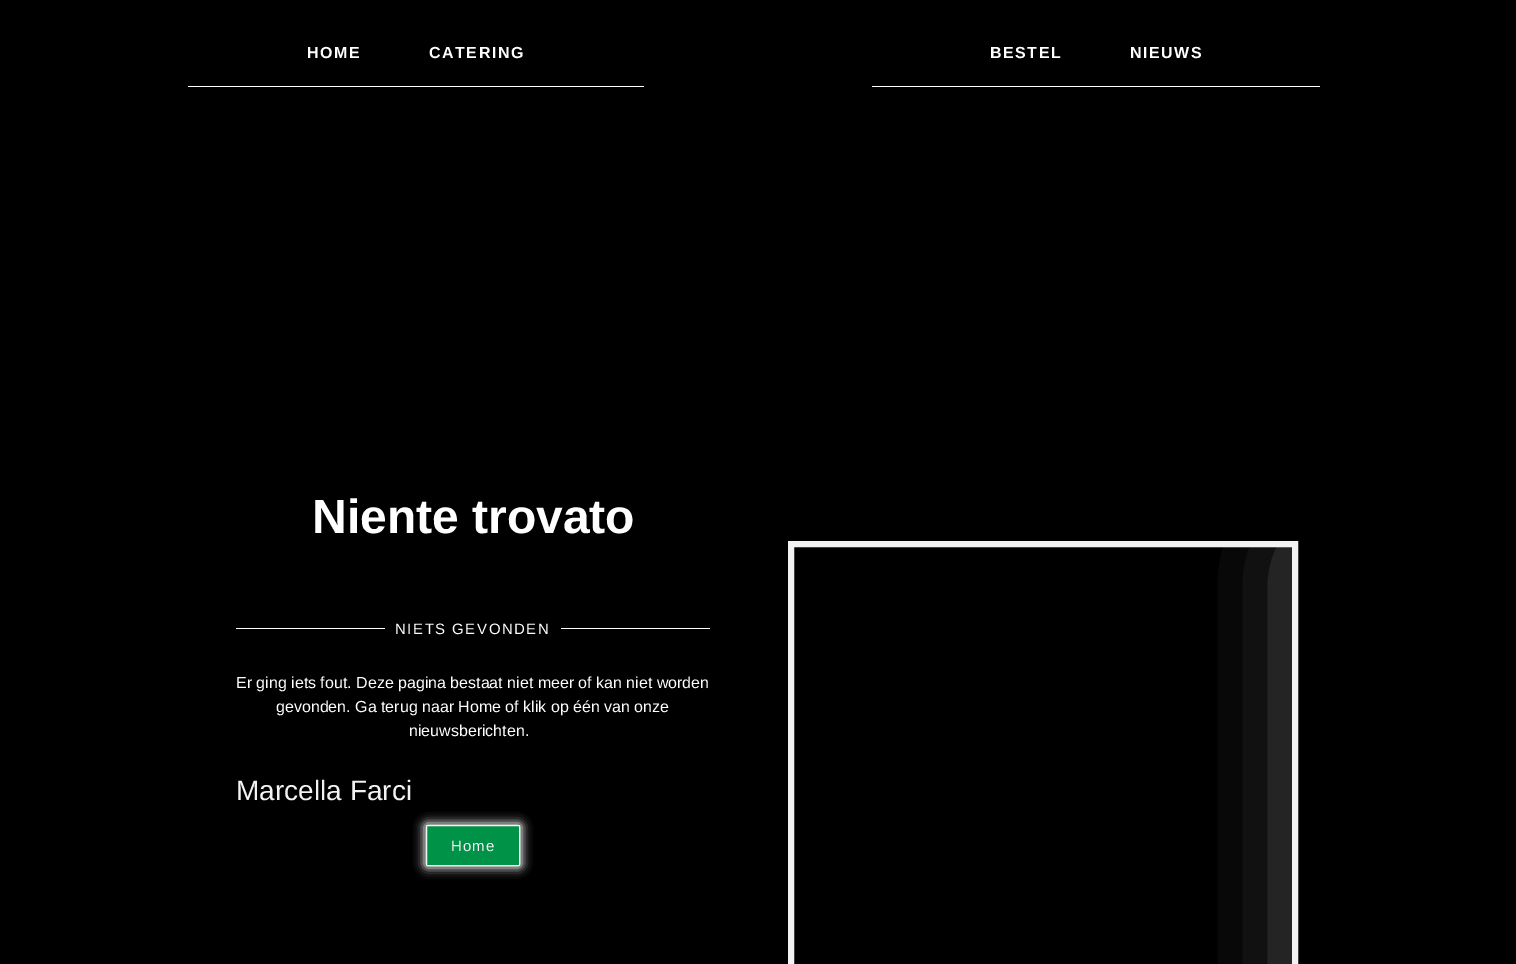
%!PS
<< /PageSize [1516 964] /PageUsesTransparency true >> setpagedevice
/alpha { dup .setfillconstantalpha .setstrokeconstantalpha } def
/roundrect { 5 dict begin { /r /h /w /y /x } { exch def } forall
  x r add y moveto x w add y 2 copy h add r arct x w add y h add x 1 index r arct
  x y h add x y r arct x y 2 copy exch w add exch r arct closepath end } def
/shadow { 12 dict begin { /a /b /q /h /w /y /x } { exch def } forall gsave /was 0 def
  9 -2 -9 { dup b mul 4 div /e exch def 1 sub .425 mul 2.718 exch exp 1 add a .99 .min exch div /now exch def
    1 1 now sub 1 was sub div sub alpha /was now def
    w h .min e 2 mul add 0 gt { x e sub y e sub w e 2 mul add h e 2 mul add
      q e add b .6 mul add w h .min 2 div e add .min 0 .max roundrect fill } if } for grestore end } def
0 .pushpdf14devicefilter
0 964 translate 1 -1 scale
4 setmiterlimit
0 setgray
0 0 1516 964 rectfill
1 setgray
188 86 456 1 rectfill
/LiberationSans-Bold [16 0 0 -16 0 0] selectfont
307 58 moveto 1.5 0 (HOME) ashow
429 58 moveto 1.5 0 (CATERING) ashow
872 86 448 1 rectfill
990 58 moveto 1.5 0 (BESTEL) ashow
1130 58 moveto 1.5 0 (NIEUWS) ashow
/LiberationSans-Bold [48 0 0 -48 0 0] selectfont
312 533 moveto (Niente trovato) show
236 628 149 1 rectfill
/LiberationSans-Regular [15 0 0 -15 0 0] selectfont
395 634 moveto 1.5 0 (NIETS GEVONDEN) ashow
561 628 149 1 rectfill
/LiberationSans-Regular [16 0 0 -16 0 0] selectfont
236 688 moveto (Er ging iets fout. Deze pagina bestaat niet meer of kan niet worden) show
276 712 moveto (gevonden. Ga terug naar Home of klik op één van onze) show
409 736 moveto (nieuwsberichten.) show
/LiberationSans-Regular [28 0 0 -28 0 0] selectfont
0.949 setgray
236 800 moveto (Marcella Farci) show
1 setgray
424 823 98 45 3 5 1 shadow
0 0.573 0.275 setrgbcolor
426.5 825.5 93 40 0.5 roundrect gsave fill grestore
0.949 setgray
stroke
/LiberationSans-Regular [15 0 0 -15 0 0] selectfont
451 851 moveto 1 0 (Home) ashow
6 setlinewidth
791 544 504 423 rectstroke
gsave
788 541 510 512 rectclip
1330 557 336 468 0 50 1 shadow
grestore
.poppdf14devicefilter showpage
